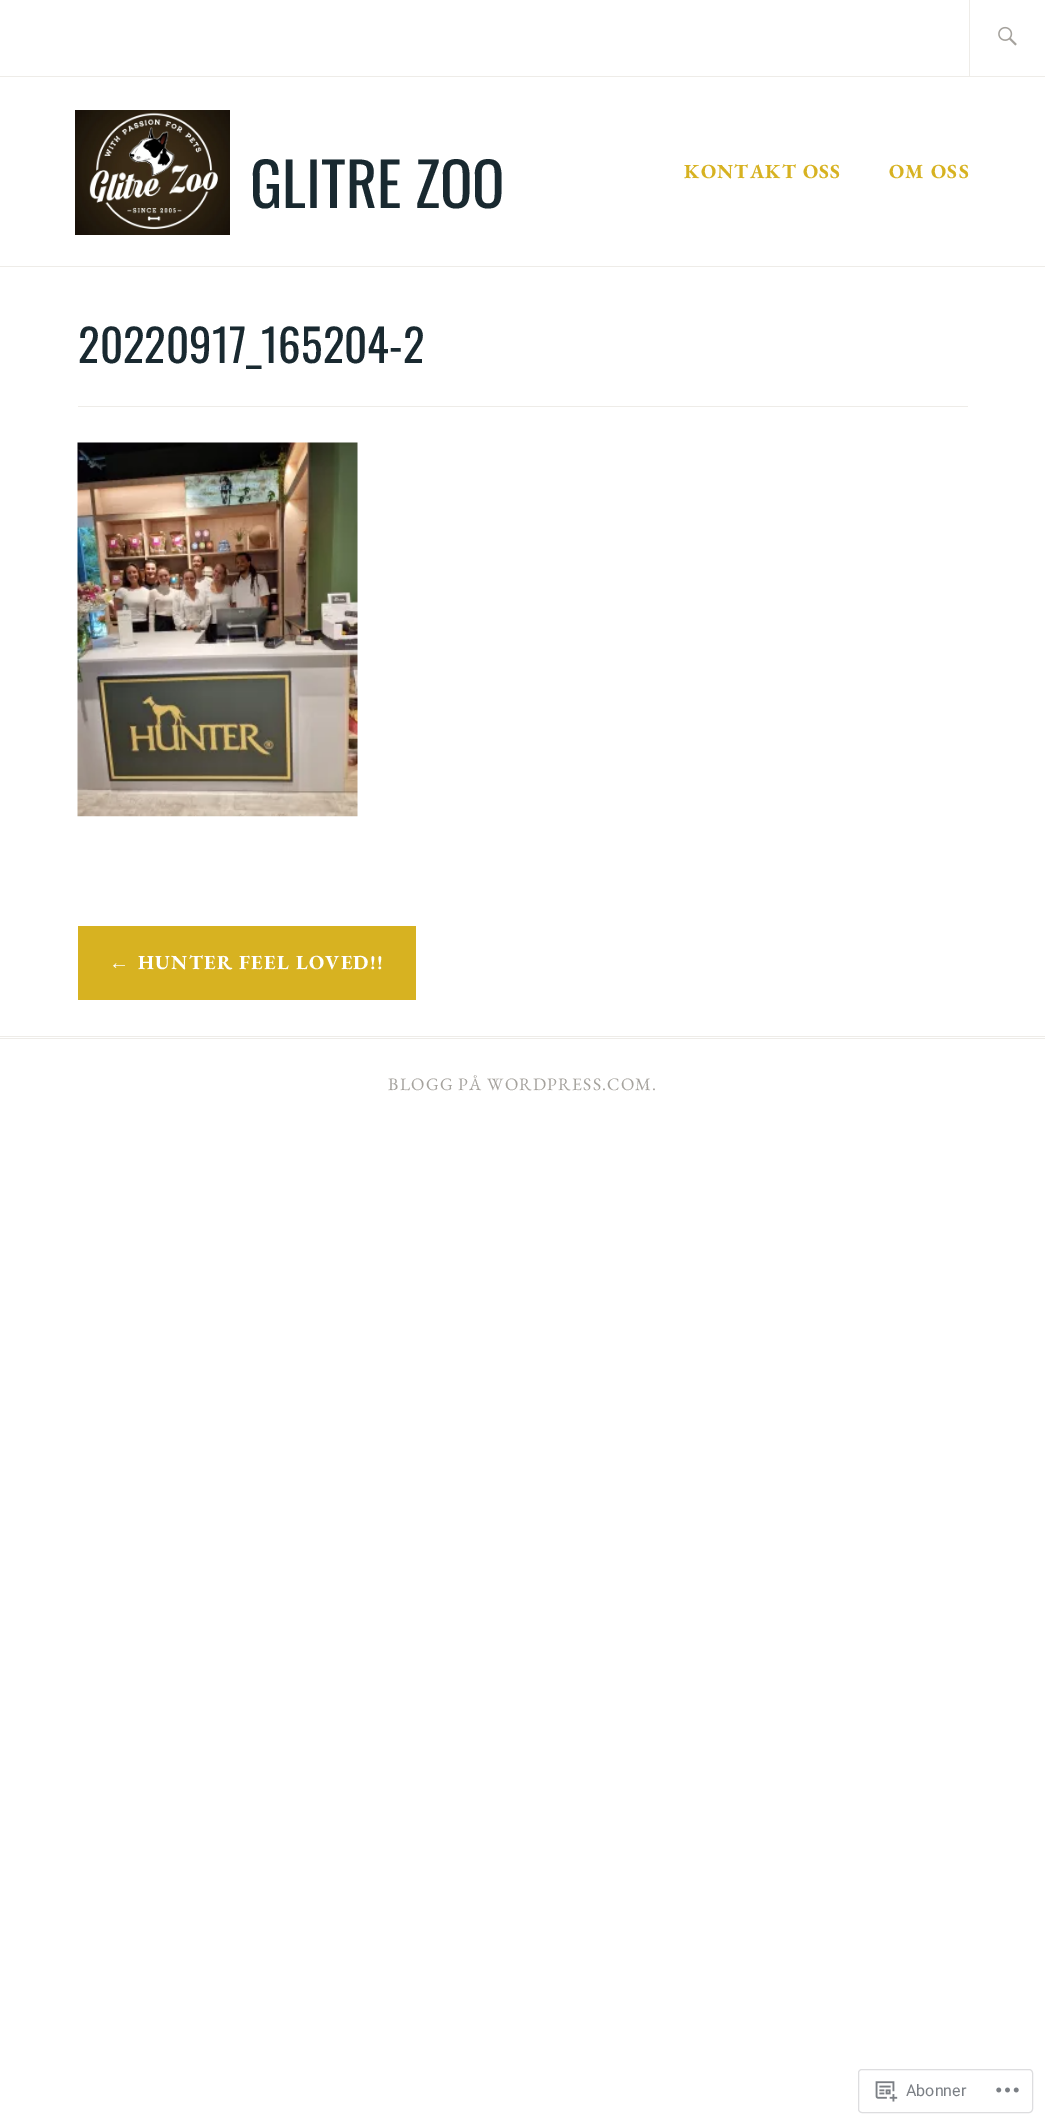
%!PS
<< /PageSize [1045 2124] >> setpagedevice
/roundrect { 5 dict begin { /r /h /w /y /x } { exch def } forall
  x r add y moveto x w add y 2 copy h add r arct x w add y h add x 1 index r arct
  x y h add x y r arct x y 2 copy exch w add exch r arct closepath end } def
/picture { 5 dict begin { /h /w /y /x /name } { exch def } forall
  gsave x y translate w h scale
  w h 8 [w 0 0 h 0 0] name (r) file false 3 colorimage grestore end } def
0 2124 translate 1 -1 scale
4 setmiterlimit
1 setgray
0 0 1045 2124 rectfill
0.933 0.925 0.91 setrgbcolor
0 266 1045 1 rectfill
0 76 1045 1 rectfill
969 0 1 76 rectfill
(img1.rgb) 998 26 19 20 picture
(img2.rgb) 75 110 155 125 picture
/Oswald-Regular [60 0 0 -60 0 0] selectfont
0.098 0.161 0.188 setrgbcolor
250 208 moveto (GLITRE ZOO) show
/EBGaramond-Bold [20 0 0 -20 0 0] selectfont
0.843 0.698 0.129 setrgbcolor
684 178 moveto 1.25 0 (KONTAKT OSS) ashow
889 178 moveto 1.25 0 (OM OSS) ashow
0.933 0.925 0.91 setrgbcolor
78 406 890 1 rectfill
/Oswald-Regular [45 0 0 -45 0 0] selectfont
0.098 0.161 0.188 setrgbcolor
78 363 moveto (20220917_165204-2) show
(img3.rgb) 77 442 281 375 picture
0.843 0.698 0.129 setrgbcolor
78 926 338 74 rectfill
/LiberationSerif-Bold [20 0 0 -20 0 0] selectfont
1 setgray
109 969 moveto 1.25 0 (←) ashow
/EBGaramond-Bold [20 0 0 -20 0 0] selectfont
138 969 moveto 1.25 0 (HUNTER FEEL LOVED!!) ashow
0.933 0.925 0.91 setrgbcolor
0 1036 1045 1 rectfill
0 1038 1045 1 rectfill
/EBGaramond-Regular [17.5 0 0 -17.5 0 0] selectfont
0.647 0.635 0.616 setrgbcolor
388 1090 moveto 1.25 0 (BLOGG PÅ WORDPRESS.COM.) ashow
0.867 0.867 0.875 setrgbcolor
858.5 2069.5 174 43 3.5 roundrect stroke
(img4.rgb) 875 2081 23 21 picture
/Roboto-Regular [16 0 0 -16 0 0] selectfont
0.482 0.498 0.522 setrgbcolor
906 2096 moveto (Abonner) show
(img5.rgb) 996 2087 23 6 picture
showpage
